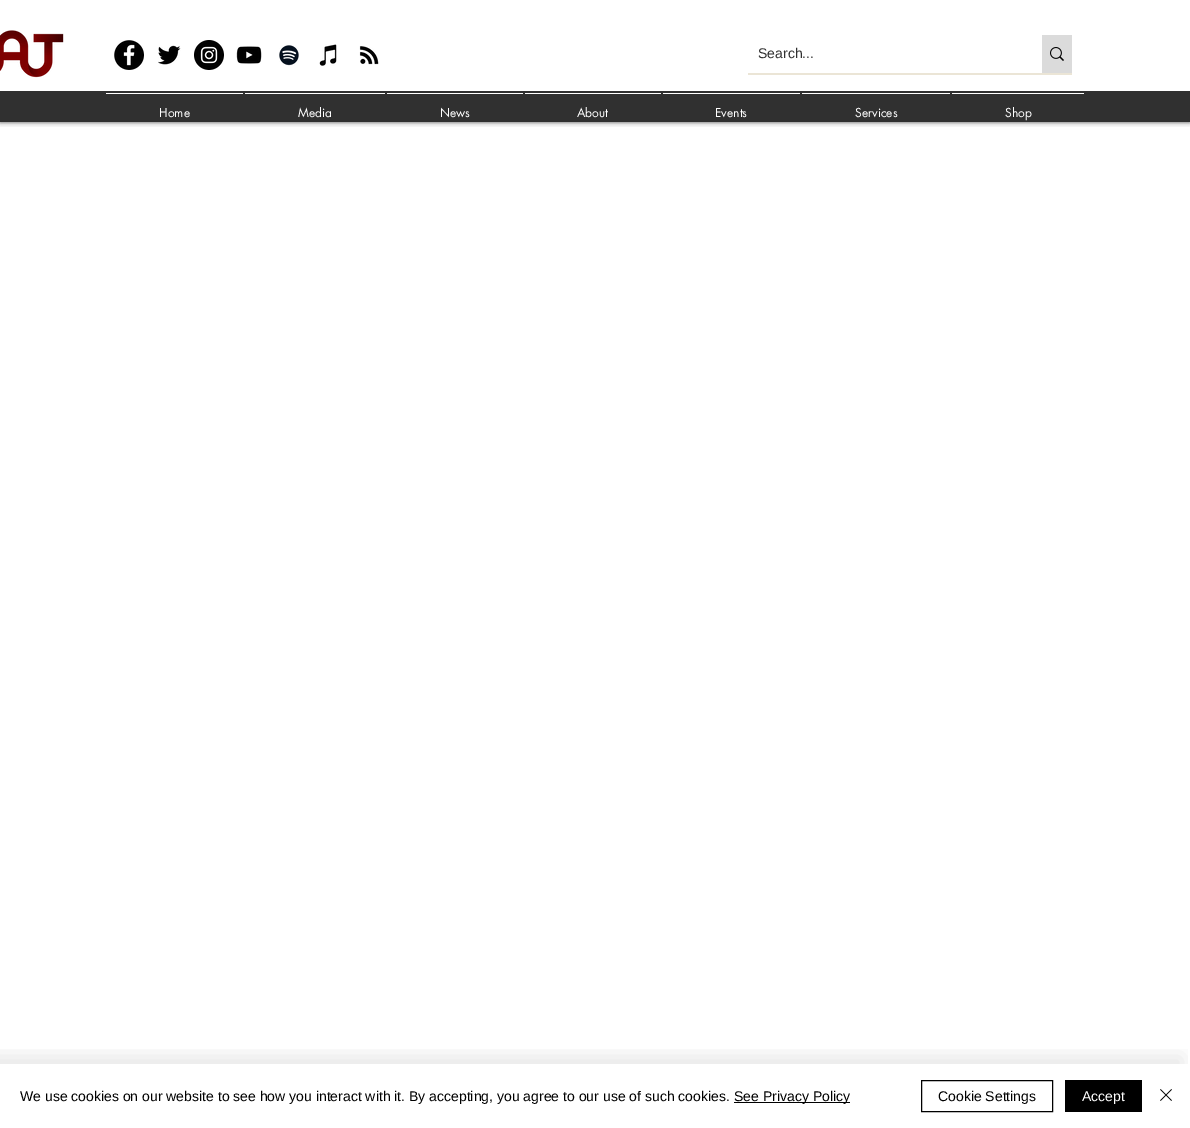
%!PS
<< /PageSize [1190 1128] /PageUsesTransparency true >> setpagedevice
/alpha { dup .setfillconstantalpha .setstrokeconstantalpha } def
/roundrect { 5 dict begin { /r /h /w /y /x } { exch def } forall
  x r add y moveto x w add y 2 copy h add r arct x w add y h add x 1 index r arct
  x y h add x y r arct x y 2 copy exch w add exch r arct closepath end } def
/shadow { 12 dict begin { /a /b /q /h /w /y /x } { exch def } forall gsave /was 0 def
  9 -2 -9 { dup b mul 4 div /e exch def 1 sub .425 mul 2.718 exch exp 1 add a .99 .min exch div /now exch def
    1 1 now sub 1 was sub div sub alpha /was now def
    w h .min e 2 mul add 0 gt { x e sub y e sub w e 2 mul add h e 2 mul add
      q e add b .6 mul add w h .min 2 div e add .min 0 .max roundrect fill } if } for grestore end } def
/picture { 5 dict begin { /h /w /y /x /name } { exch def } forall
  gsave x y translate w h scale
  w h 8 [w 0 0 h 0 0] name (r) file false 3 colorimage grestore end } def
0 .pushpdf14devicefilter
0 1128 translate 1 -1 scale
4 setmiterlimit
1 setgray
0 0 1190 1128 rectfill
gsave
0 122 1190 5 rectclip
0 setgray
0 0 1190 122 0 2.5 0.7 shadow
grestore
(img1.rgb) 0 30 64 48 picture
(img2.rgb) 114 40 30 30 picture
(img3.rgb) 158 45 23 20 picture
(img4.rgb) 194 40 30 30 picture
(img5.rgb) 236 46 26 18 picture
(img6.rgb) 279 45 20 21 picture
(img7.rgb) 319 44 18 22 picture
(img8.rgb) 359 46 20 19 picture
0.922 0.898 0.839 setrgbcolor
748 73 324 2 rectfill
/LiberationSans-Regular [14 0 0 -14 0 0] selectfont
0.188 setgray
758 58 moveto (Search...) show
0.859 setgray
1042 35 30 38 rectfill
(img9.rgb) 1050 47 14 14 picture
0.188 setgray
0 91 1190 31 rectfill
1 setgray
106 93 137 1 rectfill
/futura-Regular [12 0 0 -12 0 0] selectfont
159 117 moveto (Home) show
245 93 140 1 rectfill
298 117 moveto (Media) show
387 93 136 1 rectfill
440 117 moveto (News) show
525 93 136 1 rectfill
577 117 moveto (About) show
663 93 137 1 rectfill
715 117 moveto (Events) show
802 93 148 1 rectfill
855 117 moveto (Services) show
952 93 132 1 rectfill
1005 117 moveto (Shop) show
gsave
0 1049 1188 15 rectclip
0 setgray
-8 1057 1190 64 0 10 0.1 shadow
grestore
/LiberationSans-Regular [14 0 0 -14 0 0] selectfont
0 setgray
20 1101 moveto (We use cookies on our website to see how you interact with it. By accepting, you agree to our use of such cookies.) show
734 1102 116 1 rectfill
734 1101 moveto (See Privacy Policy) show
921.5 1080.5 131 31 rectstroke
938 1101 moveto (Cookie Settings) show
1065 1080 77 32 rectfill
1 setgray
1082 1101 moveto (Accept) show
(img10.rgb) 1160 1089 12 12 picture
.poppdf14devicefilter showpage
